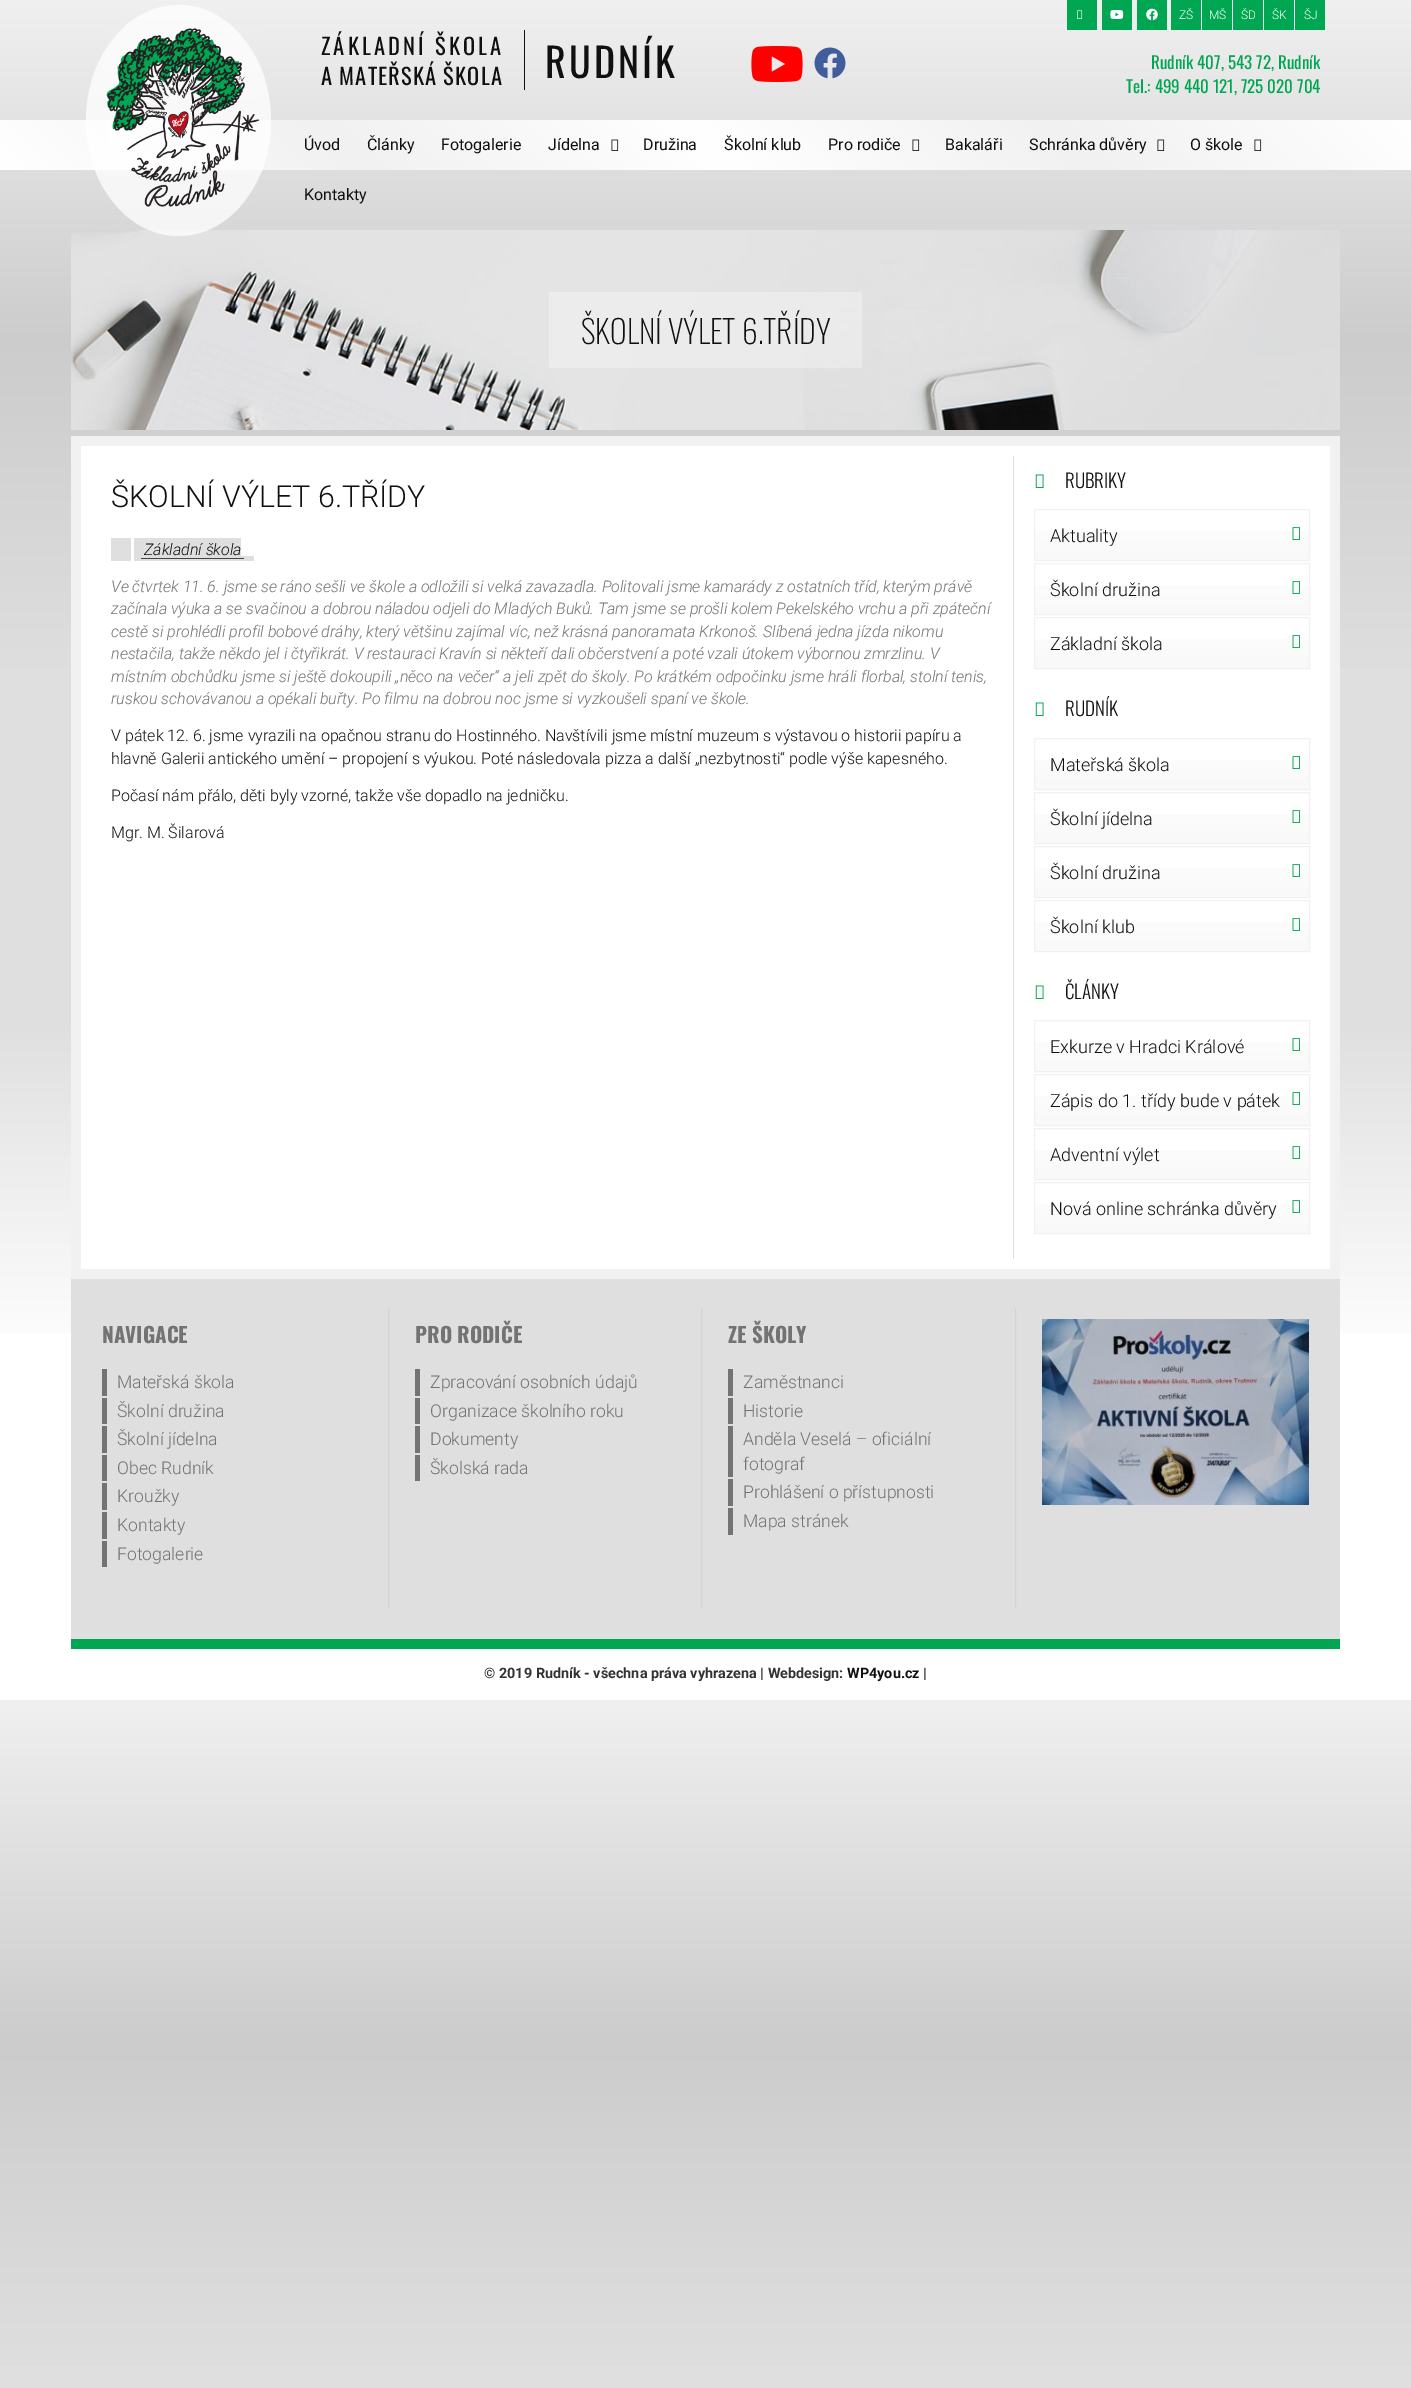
%!PS
<< /PageSize [1411 2388] /PageUsesTransparency true >> setpagedevice
/alpha { dup .setfillconstantalpha .setstrokeconstantalpha } def
/picture { 5 dict begin { /h /w /y /x /name } { exch def } forall
  gsave x y translate w h scale
  w h 8 [w 0 0 h 0 0] name (r) file false 3 colorimage grestore end } def
0 .pushpdf14devicefilter
0 2388 translate 1 -1 scale
4 setmiterlimit
1 setgray
0 0 1411 2388 rectfill
gsave newpath 0 0 moveto 1411 0 lineto 1411 1333 lineto 0 1333 lineto closepath clip newpath
<< /ShadingType 2 /ColorSpace /DeviceRGB /Coords [706 1700 706 0] /Extend [true true] /Function << /FunctionType 3 /Domain [0 1] /Functions [<< /FunctionType 2 /Domain [0 1] /C0 [1 1 1] /C1 [1 1 1] /N 1 >> << /FunctionType 2 /Domain [0 1] /C0 [1 1 1] /C1 [0.875 0.875 0.875] /N 1 >> << /FunctionType 2 /Domain [0 1] /C0 [0.875 0.875 0.875] /C1 [0.875 0.875 0.875] /N 1 >> << /FunctionType 2 /Domain [0 1] /C0 [0.875 0.875 0.875] /C1 [0.8 0.8 0.8] /N 1 >> << /FunctionType 2 /Domain [0 1] /C0 [0.8 0.8 0.8] /C1 [0.941 0.941 0.941] /N 1 >>] /Bounds [0.2 0.4 0.6 0.8] /Encode [0 1 0 1 0 1 0 1 0 1] >> >> shfill grestore
gsave newpath 0 1700 moveto 1411 1700 lineto 1411 2388 lineto 0 2388 lineto closepath clip newpath
<< /ShadingType 2 /ColorSpace /DeviceRGB /Coords [706 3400 706 1700] /Extend [true true] /Function << /FunctionType 3 /Domain [0 1] /Functions [<< /FunctionType 2 /Domain [0 1] /C0 [1 1 1] /C1 [1 1 1] /N 1 >> << /FunctionType 2 /Domain [0 1] /C0 [1 1 1] /C1 [0.875 0.875 0.875] /N 1 >> << /FunctionType 2 /Domain [0 1] /C0 [0.875 0.875 0.875] /C1 [0.875 0.875 0.875] /N 1 >> << /FunctionType 2 /Domain [0 1] /C0 [0.875 0.875 0.875] /C1 [0.8 0.8 0.8] /N 1 >> << /FunctionType 2 /Domain [0 1] /C0 [0.8 0.8 0.8] /C1 [0.941 0.941 0.941] /N 1 >>] /Bounds [0.2 0.4 0.6 0.8] /Encode [0 1 0 1 0 1 0 1 0 1] >> >> shfill grestore
gsave newpath 0 120 moveto 1411 120 lineto 1411 170 lineto 0 170 lineto closepath clip newpath
<< /ShadingType 2 /ColorSpace /DeviceRGB /Coords [340 510 1071 -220] /Extend [true true] /Function << /FunctionType 3 /Domain [0 1] /Functions [<< /FunctionType 2 /Domain [0 1] /C0 [1 1 1] /C1 [0.945 0.945 0.945] /N 1 >> << /FunctionType 2 /Domain [0 1] /C0 [0.945 0.945 0.945] /C1 [1 1 1] /N 1 >> << /FunctionType 2 /Domain [0 1] /C0 [1 1 1] /C1 [0.945 0.945 0.945] /N 1 >> << /FunctionType 2 /Domain [0 1] /C0 [0.945 0.945 0.945] /C1 [1 1 1] /N 1 >>] /Bounds [0.25 0.5 0.75] /Encode [0 1 0 1 0 1 0 1] >> >> shfill grestore
(img11.rgb) 71 230 1269 200 picture
0.75 alpha
newpath 178.5 5 moveto 229.5 5 271 56.5 271 120.5 curveto 271 184.5 229.5 236 178.5 236 curveto 127.5 236 86 184.5 86 120.5 curveto 86 56.5 127.5 5 178.5 5 curveto closepath fill
1 alpha
(img1.rgb) 106 28 154 179 picture
0 0.651 0.318 setrgbcolor
1067 0 30 30 rectfill
(img2.rgb) 1077 10 6 9 picture
1102 0 30 30 rectfill
(img3.rgb) 1110 10 14 9 picture
1137 0 30 30 rectfill
(img4.rgb) 1146 8 12 13 picture
1171 0 30 30 rectfill
/Roboto-Light [12 0 0 -12 0 0] selectfont
1 setgray
1179 19 moveto (ZŠ) show
0 0.651 0.318 setrgbcolor
1202 0 30 30 rectfill
1 setgray
1209 19 moveto (MŠ) show
0 0.651 0.318 setrgbcolor
1233 0 30 30 rectfill
1 setgray
1241 19 moveto (ŠD) show
0 0.651 0.318 setrgbcolor
1264 0 30 30 rectfill
1 setgray
1272 19 moveto (ŠK) show
0 0.651 0.318 setrgbcolor
1295 0 30 30 rectfill
1 setgray
1304 19 moveto (ŠJ) show
0.063 setgray
524 30 1 60 rectfill
/Oswald-Regular [22.5 0 0 -22.5 0 0] selectfont
321 55 moveto 3.1 0 (ZÁKLADNÍ ŠKOLA) ashow
321 85 moveto 1.1 0 (A MATEŘSKÁ ŠKOLA) ashow
/Oswald-Regular [40 0 0 -40 0 0] selectfont
545 78 moveto 3.1 0 (RUDNÍK) ashow
/Oswald-Regular [17 0 0 -17 0 0] selectfont
0 0.651 0.318 setrgbcolor
1151 69 moveto (Rudník 407, 543 72, Rudník) show
1126 93 moveto (Tel.: 499 440 121, 725 020 704) show
(img5.rgb) 751 46 52 36 picture
(img6.rgb) 814 47 32 32 picture
/Roboto-Regular [16 0 0 -16 0 0] selectfont
0.063 setgray
304 150 moveto (Úvod) show
367 150 moveto (Články) show
441 150 moveto (Fotogalerie) show
548 150 moveto (Jídelna) show
(img7.rgb) 611 139 8 12 picture
643 150 moveto (Družina) show
724 150 moveto (Školní klub) show
828 150 moveto (Pro rodiče) show
(img8.rgb) 912 139 8 12 picture
945 150 moveto (Bakaláři) show
1029 150 moveto (Schránka důvěry) show
(img9.rgb) 1157 139 8 12 picture
1190 150 moveto (O škole) show
(img10.rgb) 1254 139 8 12 picture
304 200 moveto (Kontakty) show
0.3 alpha
1 setgray
549 292 313 76 rectfill
/Oswald-ExtraLight [32 0 0 -32 0 0] selectfont
1 alpha
0.063 setgray
581 344 moveto (ŠKOLNÍ VÝLET 6.TŘÍDY) show
0.945 setgray
71 436 1269 843 rectfill
1 setgray
81 446 1249 823 rectfill
/Roboto-Light [30.4 0 0 -30.4 0 0] selectfont
0.063 setgray
111 507 moveto (ŠKOLNÍ VÝLET 6.TŘÍDY) show
0.875 setgray
111 538 20 23 rectfill
134 538 107 23 rectfill
241 556 13 5 rectfill
/Roboto-LightItalic [16 0 0 -16 0 0] selectfont
0.063 setgray
144 555 moveto (Základní škola) show
0.263 0.267 0.271 setrgbcolor
141 558 103 1 rectfill
0.451 setgray
111 592 moveto (Ve čtvrtek 11. 6. jsme se ráno sešli ve škole a odložili si velká zavazadla. Politovali jsme kamarády z ostatních tříd, kterým právě) show
111 614 moveto (začínala výuka a se svačinou a dobrou náladou odjeli do Mladých Buků. Tam jsme se prošli kolem Pekelského vrchu a při zpáteční) show
111 637 moveto (cestě si prohlédli profil bobové dráhy, který většinu zajímal víc, než krásná panoramata Krkonoš. Slíbená jedna jízda nikomu) show
111 659 moveto (nestačila, takže někdo jel i čtyřikrát. V restauraci Kravín si někteří dali občerstvení a poté vzali útokem výbornou zmrzlinu. V) show
111 682 moveto (místním obchůdku jsme si ještě dokoupili „něco na večer“ a jeli zpět do školy. Po krátkém odpočinku jsme hráli florbal, stolní tenis,) show
111 704 moveto (ruskou schovávanou a opékali buřty. Po filmu na dobrou noc jsme si vyzkoušeli spaní ve škole.) show
/Roboto-Light [16 0 0 -16 0 0] selectfont
0.063 setgray
111 741 moveto (V pátek 12. 6. jsme vyrazili na opačnou stranu do Hostinného. Navštívili jsme místní muzeum s výstavou o historii papíru a) show
111 764 moveto (hlavně Galerii antického umění – propojení s výukou. Poté následovala pizza a další „nezbytnosti“ podle výše kapesného.) show
111 801 moveto (Počasí nám přálo, děti byly vzorné, takže vše dopadlo na jedničku.) show
111 838 moveto (Mgr. M. Šilarová) show
0.875 setgray
1013 456 1 803 rectfill
(img12.rgb) 1035 474 9 14 picture
/Oswald-Light [19 0 0 -19 0 0] selectfont
0.063 setgray
1065 488 moveto (RUBRIKY) show
gsave newpath 1035 531 moveto 1309 531 lineto 1309 560 lineto 1035 560 lineto closepath clip newpath
<< /ShadingType 2 /ColorSpace /DeviceRGB /Coords [1172 560 1172 510] /Extend [true true] /Function << /FunctionType 2 /Domain [0 1] /C0 [0.976 0.976 0.976] /C1 [1 1 1] /N 1 >> >> shfill grestore
0.945 setgray
1034.5 509.5 275 51 rectstroke
/Roboto-Light [18 0 0 -18 0 0] selectfont
0.063 setgray
1050 542 moveto (Aktuality) show
(img13.rgb) 1292 527 8 13 picture
gsave newpath 1035 585 moveto 1309 585 lineto 1309 614 lineto 1035 614 lineto closepath clip newpath
<< /ShadingType 2 /ColorSpace /DeviceRGB /Coords [1172 614 1172 564] /Extend [true true] /Function << /FunctionType 2 /Domain [0 1] /C0 [0.976 0.976 0.976] /C1 [1 1 1] /N 1 >> >> shfill grestore
0.945 setgray
1034.5 563.5 275 51 rectstroke
0.063 setgray
1050 596 moveto (Školní družina) show
(img13.rgb) 1292 581 8 13 picture
gsave newpath 1035 639 moveto 1309 639 lineto 1309 668 lineto 1035 668 lineto closepath clip newpath
<< /ShadingType 2 /ColorSpace /DeviceRGB /Coords [1172 668 1172 618] /Extend [true true] /Function << /FunctionType 2 /Domain [0 1] /C0 [0.976 0.976 0.976] /C1 [1 1 1] /N 1 >> >> shfill grestore
0.945 setgray
1034.5 617.5 275 51 rectstroke
0.063 setgray
1050 650 moveto (Základní škola) show
(img13.rgb) 1292 635 8 13 picture
(img12.rgb) 1035 702 9 14 picture
/Oswald-Light [19 0 0 -19 0 0] selectfont
1065 716 moveto (RUDNÍK) show
gsave newpath 1035 760 moveto 1309 760 lineto 1309 789 lineto 1035 789 lineto closepath clip newpath
<< /ShadingType 2 /ColorSpace /DeviceRGB /Coords [1172 789 1172 739] /Extend [true true] /Function << /FunctionType 2 /Domain [0 1] /C0 [0.976 0.976 0.976] /C1 [1 1 1] /N 1 >> >> shfill grestore
0.945 setgray
1034.5 738.5 275 51 rectstroke
/Roboto-Light [18 0 0 -18 0 0] selectfont
0.063 setgray
1050 771 moveto (Mateřská škola) show
(img13.rgb) 1292 756 8 13 picture
gsave newpath 1035 814 moveto 1309 814 lineto 1309 843 lineto 1035 843 lineto closepath clip newpath
<< /ShadingType 2 /ColorSpace /DeviceRGB /Coords [1172 843 1172 793] /Extend [true true] /Function << /FunctionType 2 /Domain [0 1] /C0 [0.976 0.976 0.976] /C1 [1 1 1] /N 1 >> >> shfill grestore
0.945 setgray
1034.5 792.5 275 51 rectstroke
0.063 setgray
1050 825 moveto (Školní jídelna) show
(img13.rgb) 1292 810 8 13 picture
gsave newpath 1035 868 moveto 1309 868 lineto 1309 897 lineto 1035 897 lineto closepath clip newpath
<< /ShadingType 2 /ColorSpace /DeviceRGB /Coords [1172 897 1172 847] /Extend [true true] /Function << /FunctionType 2 /Domain [0 1] /C0 [0.976 0.976 0.976] /C1 [1 1 1] /N 1 >> >> shfill grestore
0.945 setgray
1034.5 846.5 275 51 rectstroke
0.063 setgray
1050 879 moveto (Školní družina) show
(img13.rgb) 1292 864 8 13 picture
gsave newpath 1035 922 moveto 1309 922 lineto 1309 951 lineto 1035 951 lineto closepath clip newpath
<< /ShadingType 2 /ColorSpace /DeviceRGB /Coords [1172 951 1172 901] /Extend [true true] /Function << /FunctionType 2 /Domain [0 1] /C0 [0.976 0.976 0.976] /C1 [1 1 1] /N 1 >> >> shfill grestore
0.945 setgray
1034.5 900.5 275 51 rectstroke
0.063 setgray
1050 933 moveto (Školní klub) show
(img13.rgb) 1292 918 8 13 picture
(img12.rgb) 1035 985 9 14 picture
/Oswald-Light [19 0 0 -19 0 0] selectfont
1065 999 moveto (ČLÁNKY) show
gsave newpath 1035 1042 moveto 1309 1042 lineto 1309 1071 lineto 1035 1071 lineto closepath clip newpath
<< /ShadingType 2 /ColorSpace /DeviceRGB /Coords [1172 1071 1172 1021] /Extend [true true] /Function << /FunctionType 2 /Domain [0 1] /C0 [0.976 0.976 0.976] /C1 [1 1 1] /N 1 >> >> shfill grestore
0.945 setgray
1034.5 1020.5 275 51 rectstroke
/Roboto-Light [18 0 0 -18 0 0] selectfont
0.063 setgray
1050 1053 moveto (Exkurze v Hradci Králové) show
(img13.rgb) 1292 1038 8 13 picture
gsave newpath 1035 1096 moveto 1309 1096 lineto 1309 1125 lineto 1035 1125 lineto closepath clip newpath
<< /ShadingType 2 /ColorSpace /DeviceRGB /Coords [1172 1125 1172 1075] /Extend [true true] /Function << /FunctionType 2 /Domain [0 1] /C0 [0.976 0.976 0.976] /C1 [1 1 1] /N 1 >> >> shfill grestore
0.945 setgray
1034.5 1074.5 275 51 rectstroke
0.063 setgray
1050 1107 moveto (Zápis do 1. třídy bude v pátek) show
(img13.rgb) 1292 1092 8 13 picture
gsave newpath 1035 1150 moveto 1309 1150 lineto 1309 1179 lineto 1035 1179 lineto closepath clip newpath
<< /ShadingType 2 /ColorSpace /DeviceRGB /Coords [1172 1179 1172 1129] /Extend [true true] /Function << /FunctionType 2 /Domain [0 1] /C0 [0.976 0.976 0.976] /C1 [1 1 1] /N 1 >> >> shfill grestore
0.945 setgray
1034.5 1128.5 275 51 rectstroke
0.063 setgray
1050 1161 moveto (Adventní výlet) show
(img13.rgb) 1292 1146 8 13 picture
gsave newpath 1035 1204 moveto 1309 1204 lineto 1309 1233 lineto 1035 1233 lineto closepath clip newpath
<< /ShadingType 2 /ColorSpace /DeviceRGB /Coords [1172 1233 1172 1183] /Extend [true true] /Function << /FunctionType 2 /Domain [0 1] /C0 [0.976 0.976 0.976] /C1 [1 1 1] /N 1 >> >> shfill grestore
0.945 setgray
1034.5 1182.5 275 51 rectstroke
0.063 setgray
1050 1215 moveto (Nová online schránka důvěry) show
(img13.rgb) 1292 1200 8 13 picture
0.875 setgray
71 1279 1269 360 rectfill
0 0.651 0.318 setrgbcolor
71 1639 1269 10 rectfill
0.788 setgray
[1 1] 0 setdash
newpath 388.5 1309 moveto 388.5 1609 lineto stroke
/Oswald-Bold [21 0 0 -21 0 0] selectfont
0.451 setgray
102 1343 moveto (NAVIGACE) show
102 1369 5 27 rectfill
/Roboto-Light [17.6 0 0 -17.6 0 0] selectfont
117 1388 moveto (Mateřská škola) show
102 1398 5 26 rectfill
117 1417 moveto (Školní družina) show
102 1426 5 27 rectfill
117 1445 moveto (Školní jídelna) show
102 1455 5 26 rectfill
117 1474 moveto (Obec Rudník) show
102 1483 5 27 rectfill
117 1502 moveto (Kroužky) show
102 1512 5 27 rectfill
117 1531 moveto (Kontakty) show
102 1541 5 26 rectfill
117 1560 moveto (Fotogalerie) show
0.788 setgray
newpath 701.5 1309 moveto 701.5 1609 lineto stroke
/Oswald-Bold [21 0 0 -21 0 0] selectfont
0.451 setgray
415 1343 moveto (PRO RODIČE) show
415 1369 5 27 rectfill
/Roboto-Light [17.6 0 0 -17.6 0 0] selectfont
430 1388 moveto (Zpracování osobních údajů) show
415 1398 5 26 rectfill
430 1417 moveto (Organizace školního roku) show
415 1426 5 27 rectfill
430 1445 moveto (Dokumenty) show
415 1455 5 26 rectfill
430 1474 moveto (Školská rada) show
0.788 setgray
newpath 1015.5 1309 moveto 1015.5 1609 lineto stroke
/Oswald-Bold [21 0 0 -21 0 0] selectfont
0.451 setgray
728 1343 moveto (ZE ŠKOLY) show
728 1369 5 27 rectfill
/Roboto-Light [17.6 0 0 -17.6 0 0] selectfont
743 1388 moveto (Zaměstnanci) show
728 1398 5 26 rectfill
743 1417 moveto (Historie) show
728 1426 5 51 rectfill
743 1445 moveto (Anděla Veselá – oficiální) show
743 1470 moveto (fotograf) show
728 1479 5 27 rectfill
743 1498 moveto (Prohlášení o přístupnosti) show
728 1508 5 27 rectfill
743 1527 moveto (Mapa stránek) show
(img14.rgb) 1042 1319 267 186 picture
/Roboto-Bold [14.4 0 0 -14.4 0 0] selectfont
0.2 setgray
484 1678 moveto (© 2019 Rudník - všechna práva vyhrazena | Webdesign:) show
0.063 setgray
847 1678 moveto (WP4you.cz) show
0.2 setgray
923 1678 moveto (|) show
.poppdf14devicefilter showpage
